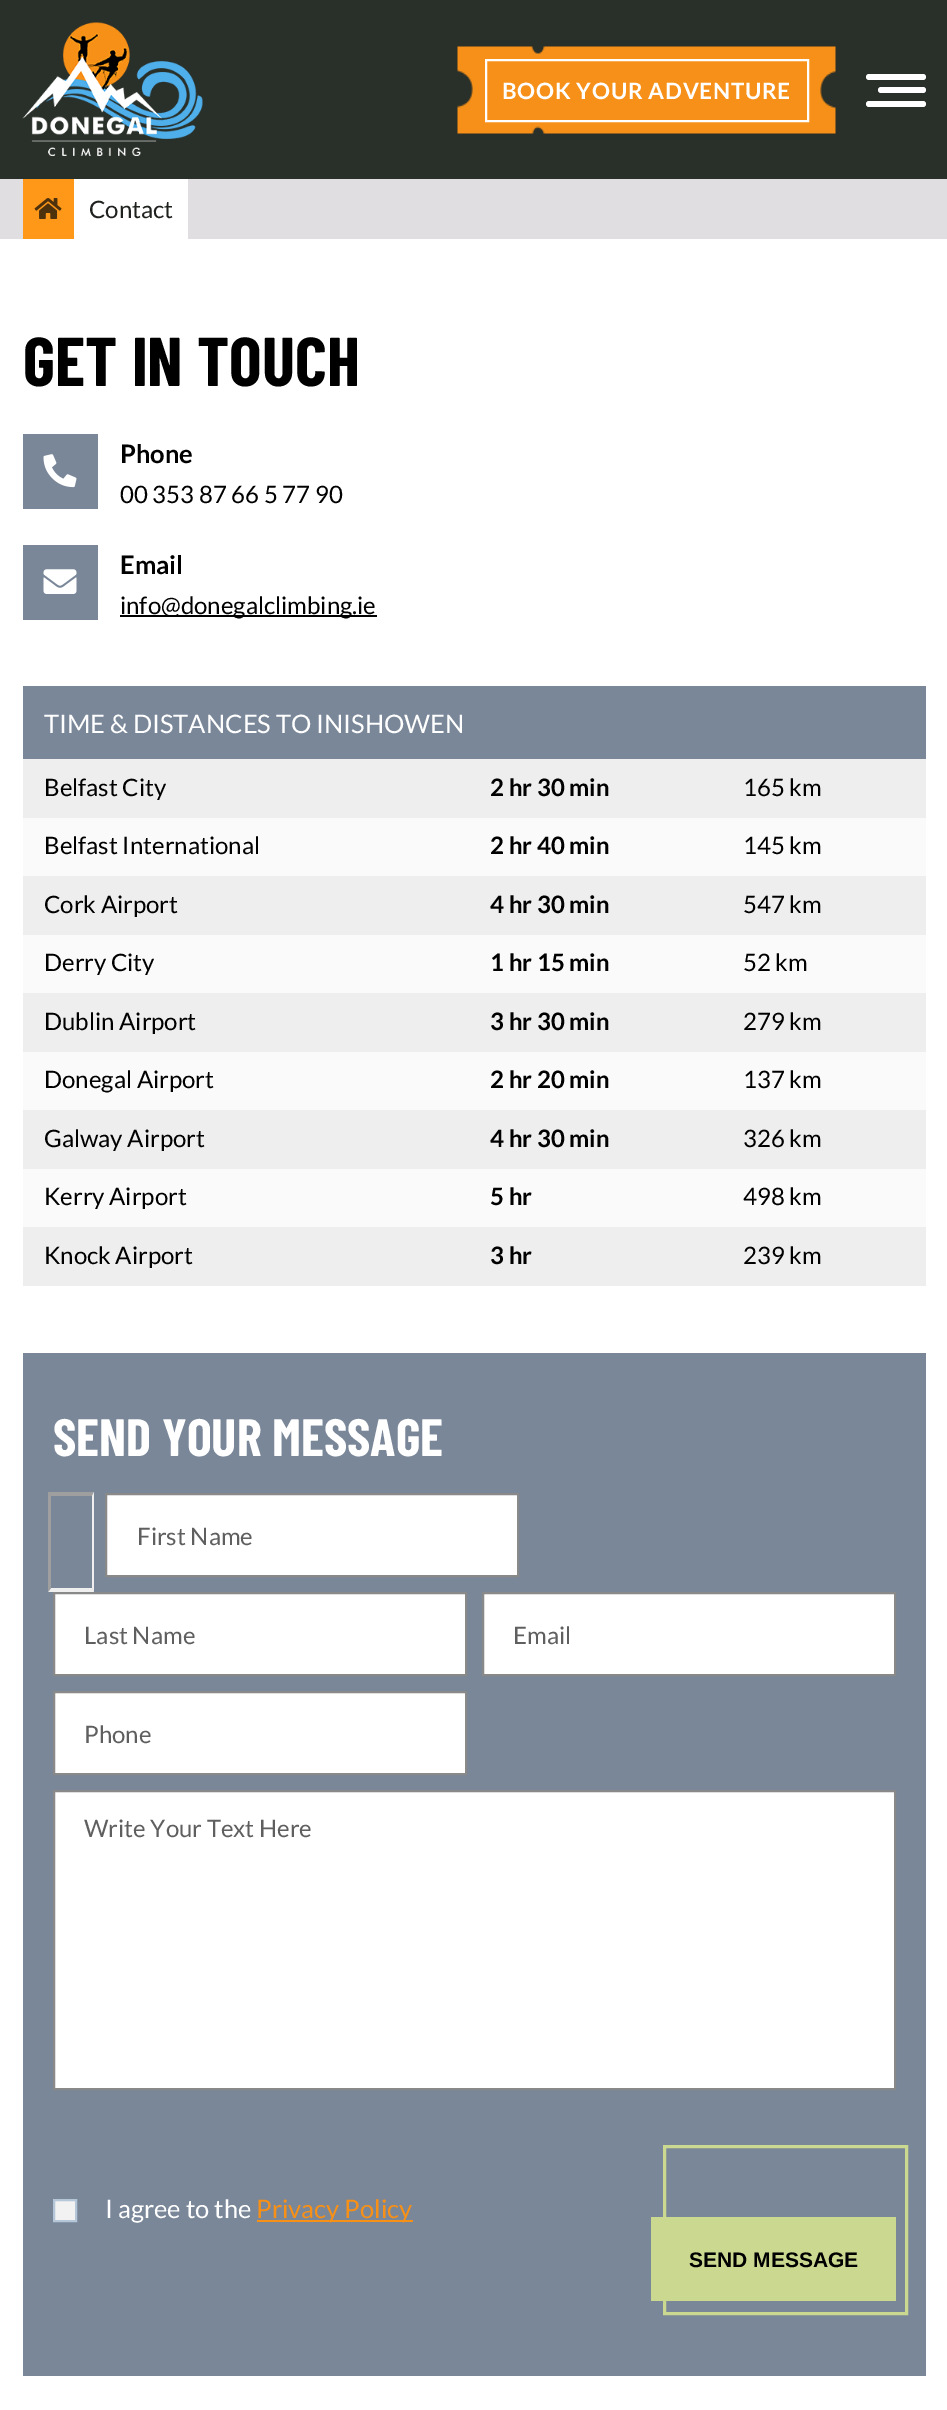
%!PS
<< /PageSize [947 2410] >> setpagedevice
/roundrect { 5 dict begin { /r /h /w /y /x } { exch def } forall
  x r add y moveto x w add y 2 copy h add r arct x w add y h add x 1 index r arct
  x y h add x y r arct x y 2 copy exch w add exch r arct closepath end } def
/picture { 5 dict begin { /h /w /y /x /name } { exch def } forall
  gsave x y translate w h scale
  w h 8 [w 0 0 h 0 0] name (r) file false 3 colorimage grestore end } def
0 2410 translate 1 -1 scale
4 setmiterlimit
1 setgray
0 0 947 2410 rectfill
0.161 0.184 0.161 setrgbcolor
0 0 947 179 rectfill
(img1.rgb) 22 22 181 134 picture
(img2.rgb) 457 46 379 88 picture
1 setgray
2 setlinewidth
486 60 322 61 rectstroke
/Lato-Bold [22.5 0 0 -22.5 0 0] selectfont
502 99 moveto 0.75 0 (BOOK YOUR ADVENTURE) ashow
866 74 60 6 3 roundrect fill
878 87 48 6 3 roundrect fill
866 101 60 6 3 roundrect fill
0.882 0.871 0.882 setrgbcolor
0 179 947 60 rectfill
1 0.596 0.094 setrgbcolor
23 179 51 60 rectfill
(img3.rgb) 34 198 28 21 picture
1 setgray
74 179 114 60 rectfill
/Lato-Regular [24 0 0 -24 0 0] selectfont
0.118 0.129 0.118 setrgbcolor
89 218 moveto (Contact) show
/BarlowCondensed-Bold [69 0 0 -69 0 0] selectfont
0 setgray
23 386 moveto (GET IN TOUCH) show
0.478 0.529 0.6 setrgbcolor
23 434 75 75 rectfill
(img4.rgb) 43 454 34 34 picture
/Lato-Bold [25.5 0 0 -25.5 0 0] selectfont
0 setgray
120 463 moveto (Phone) show
/Lato-Regular [24 0 0 -24 0 0] selectfont
120 503 moveto (00 353 87 66 5 77 90) show
0.478 0.529 0.6 setrgbcolor
23 545 75 75 rectfill
(img5.rgb) 43 569 34 25 picture
/Lato-Bold [25.5 0 0 -25.5 0 0] selectfont
0 setgray
120 574 moveto (Email) show
0.004 setgray
120 615 257 2 rectfill
/Lato-Regular [24 0 0 -24 0 0] selectfont
0 setgray
120 614 moveto (info@donegalclimbing.ie) show
0.478 0.529 0.6 setrgbcolor
23 686 903 73 rectfill
/Lato-Regular [25.5 0 0 -25.5 0 0] selectfont
1 setgray
44 733 moveto (TIME & DISTANCES TO INISHOWEN) show
0.933 setgray
23 759 903 59 rectfill
/Lato-Regular [24 0 0 -24 0 0] selectfont
0 setgray
44 796 moveto (Belfast City) show
/Lato-Bold [24 0 0 -24 0 0] selectfont
490 796 moveto (2 hr 30 min) show
/Lato-Regular [24 0 0 -24 0 0] selectfont
743 796 moveto (165 km) show
0.98 setgray
23 818 903 58 rectfill
0 setgray
44 854 moveto (Belfast International) show
/Lato-Bold [24 0 0 -24 0 0] selectfont
490 854 moveto (2 hr 40 min) show
/Lato-Regular [24 0 0 -24 0 0] selectfont
743 854 moveto (145 km) show
0.933 setgray
23 876 903 59 rectfill
0 setgray
44 913 moveto (Cork Airport) show
/Lato-Bold [24 0 0 -24 0 0] selectfont
490 913 moveto (4 hr 30 min) show
/Lato-Regular [24 0 0 -24 0 0] selectfont
743 913 moveto (547 km) show
0.98 setgray
23 935 903 58 rectfill
0 setgray
44 971 moveto (Derry City) show
/Lato-Bold [24 0 0 -24 0 0] selectfont
490 971 moveto (1 hr 15 min) show
/Lato-Regular [24 0 0 -24 0 0] selectfont
743 971 moveto (52 km) show
0.933 setgray
23 993 903 59 rectfill
0 setgray
44 1030 moveto (Dublin Airport) show
/Lato-Bold [24 0 0 -24 0 0] selectfont
490 1030 moveto (3 hr 30 min) show
/Lato-Regular [24 0 0 -24 0 0] selectfont
743 1030 moveto (279 km) show
0.98 setgray
23 1052 903 58 rectfill
0 setgray
44 1088 moveto (Donegal Airport) show
/Lato-Bold [24 0 0 -24 0 0] selectfont
490 1088 moveto (2 hr 20 min) show
/Lato-Regular [24 0 0 -24 0 0] selectfont
743 1088 moveto (137 km) show
0.933 setgray
23 1110 903 59 rectfill
0 setgray
44 1147 moveto (Galway Airport) show
/Lato-Bold [24 0 0 -24 0 0] selectfont
490 1147 moveto (4 hr 30 min) show
/Lato-Regular [24 0 0 -24 0 0] selectfont
743 1147 moveto (326 km) show
0.98 setgray
23 1169 903 58 rectfill
0 setgray
44 1205 moveto (Kerry Airport) show
/Lato-Bold [24 0 0 -24 0 0] selectfont
490 1205 moveto (5 hr) show
/Lato-Regular [24 0 0 -24 0 0] selectfont
743 1205 moveto (498 km) show
0.933 setgray
23 1227 903 59 rectfill
0 setgray
44 1264 moveto (Knock Airport) show
/Lato-Bold [24 0 0 -24 0 0] selectfont
490 1264 moveto (3 hr) show
/Lato-Regular [24 0 0 -24 0 0] selectfont
743 1264 moveto (239 km) show
0.478 0.529 0.6 setrgbcolor
23 1353 903 1023 rectfill
/BarlowCondensed-Bold [52.5 0 0 -52.5 0 0] selectfont
1 setgray
53 1456 moveto (SEND YOUR MESSAGE) show
0.624 setgray
newpath 48 1492 moveto 94 1492 lineto 92 1496 lineto 51 1496 lineto closepath fill
0.937 setgray
newpath 94 1492 moveto 94 1592 lineto 92 1588 lineto 92 1496 lineto closepath fill
newpath 94 1592 moveto 48 1592 lineto 51 1588 lineto 92 1588 lineto closepath fill
0.624 setgray
newpath 48 1592 moveto 48 1492 lineto 51 1496 lineto 51 1588 lineto closepath fill
1 setgray
newpath 106 1494 moveto 518 1494 lineto 518 1576 lineto 106 1576 lineto closepath gsave fill grestore
0.537 setgray
stroke
/Lato-Regular [24 0 0 -24 0 0] selectfont
0.373 setgray
137 1545 moveto (First Name) show
1 setgray
newpath 54 1593 moveto 466 1593 lineto 466 1675 lineto 54 1675 lineto closepath gsave fill grestore
0.537 setgray
stroke
0.373 setgray
84 1644 moveto (Last Name) show
1 setgray
newpath 483 1593 moveto 895 1593 lineto 895 1675 lineto 483 1675 lineto closepath gsave fill grestore
0.537 setgray
stroke
0.373 setgray
513 1644 moveto (Email) show
1 setgray
newpath 54 1692 moveto 466 1692 lineto 466 1774 lineto 54 1774 lineto closepath gsave fill grestore
0.537 setgray
stroke
0.373 setgray
84 1743 moveto (Phone) show
1 setgray
newpath 54 1791 moveto 895 1791 lineto 895 2089 lineto 54 2089 lineto closepath gsave fill grestore
0.537 setgray
stroke
0.373 setgray
84 1837 moveto (Write Your Text Here) show
0.949 setgray
newpath 54 2200 moveto 76 2200 lineto 76 2221 lineto 54 2221 lineto closepath gsave fill grestore
0.71 0.776 0.851 setrgbcolor
stroke
/Lato-Regular [25.5 0 0 -25.5 0 0] selectfont
1 setgray
105 2218 moveto (I agree to the) show
0.969 0.565 0.09 setrgbcolor
257 2220 156 2 rectfill
256 2218 moveto (Privacy Policy) show
0.792 0.847 0.565 setrgbcolor
651 2217 245 84 rectfill
3 setlinewidth
664.5 2146.5 242 167 rectstroke
/LiberationSans-Bold [21 0 0 -21 0 0] selectfont
0 setgray
689 2267 moveto (SEND MESSAGE) show
showpage
